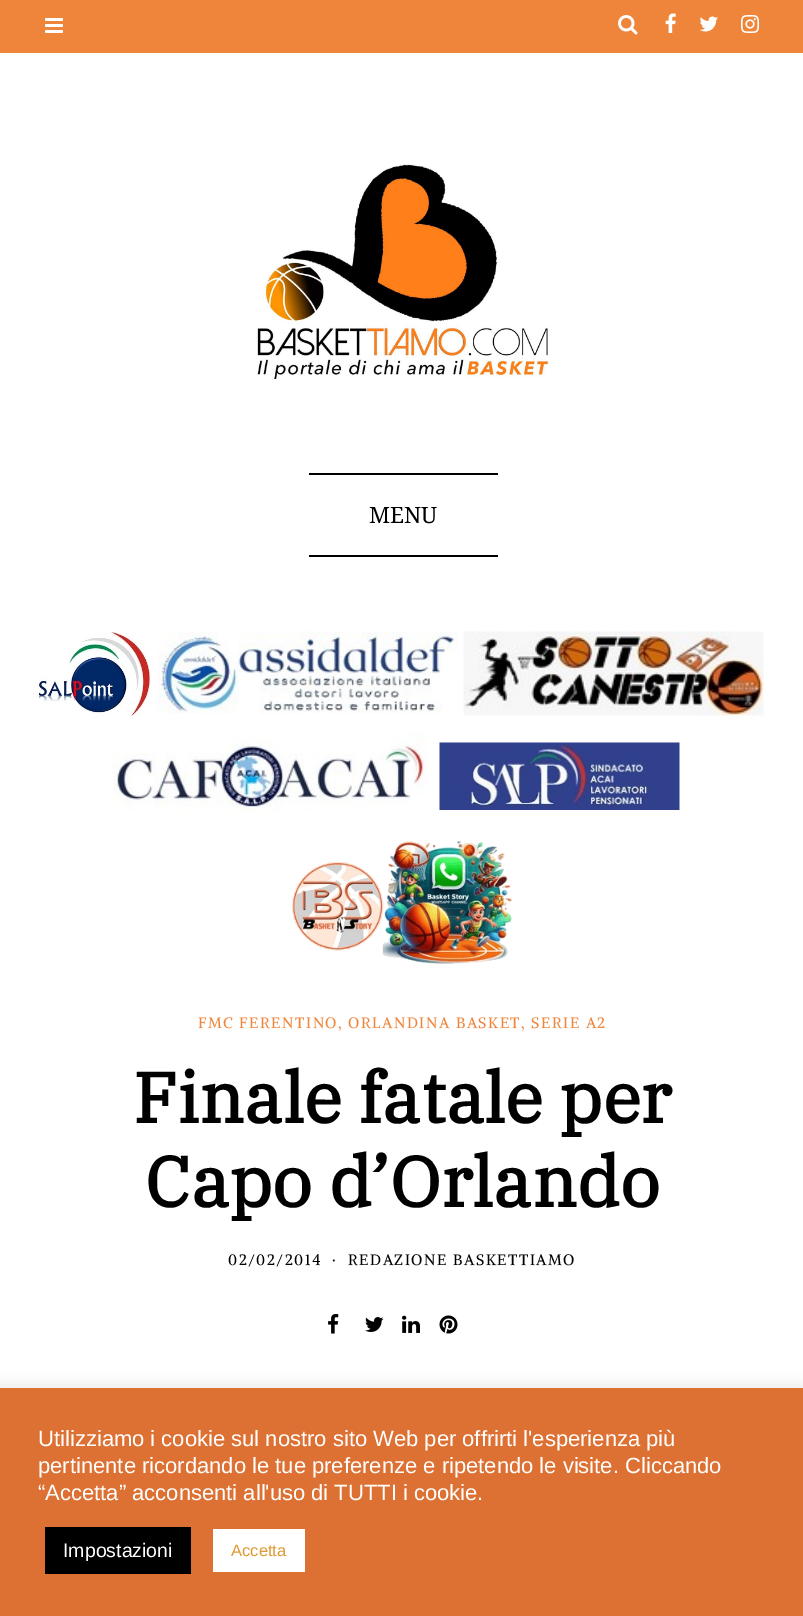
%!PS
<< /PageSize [803 1616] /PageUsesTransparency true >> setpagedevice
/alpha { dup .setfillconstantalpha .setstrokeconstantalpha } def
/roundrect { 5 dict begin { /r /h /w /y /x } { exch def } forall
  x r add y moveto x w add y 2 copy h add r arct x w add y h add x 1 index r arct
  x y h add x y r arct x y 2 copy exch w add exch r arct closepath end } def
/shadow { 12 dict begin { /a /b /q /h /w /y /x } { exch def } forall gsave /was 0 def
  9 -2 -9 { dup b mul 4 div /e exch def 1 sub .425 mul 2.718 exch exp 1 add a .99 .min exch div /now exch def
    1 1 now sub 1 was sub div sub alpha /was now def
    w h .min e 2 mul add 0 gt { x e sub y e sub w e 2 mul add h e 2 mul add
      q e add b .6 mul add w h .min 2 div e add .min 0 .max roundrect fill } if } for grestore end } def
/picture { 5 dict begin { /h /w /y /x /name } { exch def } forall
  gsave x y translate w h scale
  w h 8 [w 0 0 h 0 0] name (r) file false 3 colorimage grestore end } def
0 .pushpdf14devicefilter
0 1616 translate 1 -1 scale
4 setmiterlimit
1 setgray
0 0 803 1616 rectfill
0.937 0.522 0.227 setrgbcolor
0 0 803 53 rectfill
(img1.rgb) 45 18 18 15 picture
(img2.rgb) 618 15 20 20 picture
(img3.rgb) 665 13 11 20 picture
(img4.rgb) 699 16 19 16 picture
(img5.rgb) 741 15 18 18 picture
(img6.rgb) 256 164 295 216 picture
0 setgray
309 473 189 2 rectfill
309 555 189 2 rectfill
/NotoSerif-Regular [22.5 0 0 -22.5 0 0] selectfont
369 523 moveto (MENU) show
(img7.rgb) 36 631 116 85 picture
(img8.rgb) 157 631 301 83 picture
(img9.rgb) 463 631 301 85 picture
(img10.rgb) 112 732 316 81 picture
(img11.rgb) 439 742 241 68 picture
(img12.rgb) 292 841 220 123 picture
/Alike-Regular [15 0 0 -15 0 0] selectfont
0.937 0.522 0.227 setrgbcolor
198 1028 moveto 1.5 0 (FMC FERENTINO, ORLANDINA BASKET, SERIE A2) ashow
/IBMPlexSerif-Bold [70.5 0 0 -70.5 0 0] selectfont
0 setgray
133 1123 moveto (Finale fatale per) show
145 1207 moveto (Capo d’Orlando) show
/Alike-Regular [15 0 0 -15 0 0] selectfont
228 1265 moveto 1.5 0 (02/02/2014) ashow
332 1265 moveto 1.5 0 (·) ashow
348 1265 moveto 1.5 0 (REDAZIONE BASKETTIAMO) ashow
(img13.rgb) 328 1314 11 20 picture
(img14.rgb) 365 1317 19 15 picture
(img15.rgb) 402 1315 18 18 picture
(img16.rgb) 439 1315 19 19 picture
0.675 0.671 0.671 setrgbcolor
0 1386 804 230 0 7.5 0.3 shadow
0.867 0.443 0.2 setrgbcolor
0 1388 803 228 rectfill
/LiberationSans-Regular [22 0 0 -22 0 0] selectfont
1 setgray
38 1446 moveto (Utilizziamo i cookie sul nostro sito Web per offrirti l'esperienza più) show
38 1473 moveto (pertinente ricordando le tue preferenze e ripetendo le visite. Cliccando) show
38 1500 moveto (“Accetta” acconsenti all'uso di TUTTI i cookie.) show
0 setgray
45 1527 146 47 rectfill
/LiberationSans-Regular [19.5 0 0 -19.5 0 0] selectfont
1 setgray
63 1557 moveto (Impostazioni) show
213 1529 92 43 rectfill
/LiberationSans-Regular [16.5 0 0 -16.5 0 0] selectfont
0.867 0.6 0.2 setrgbcolor
231 1556 moveto (Accetta) show
.poppdf14devicefilter showpage
